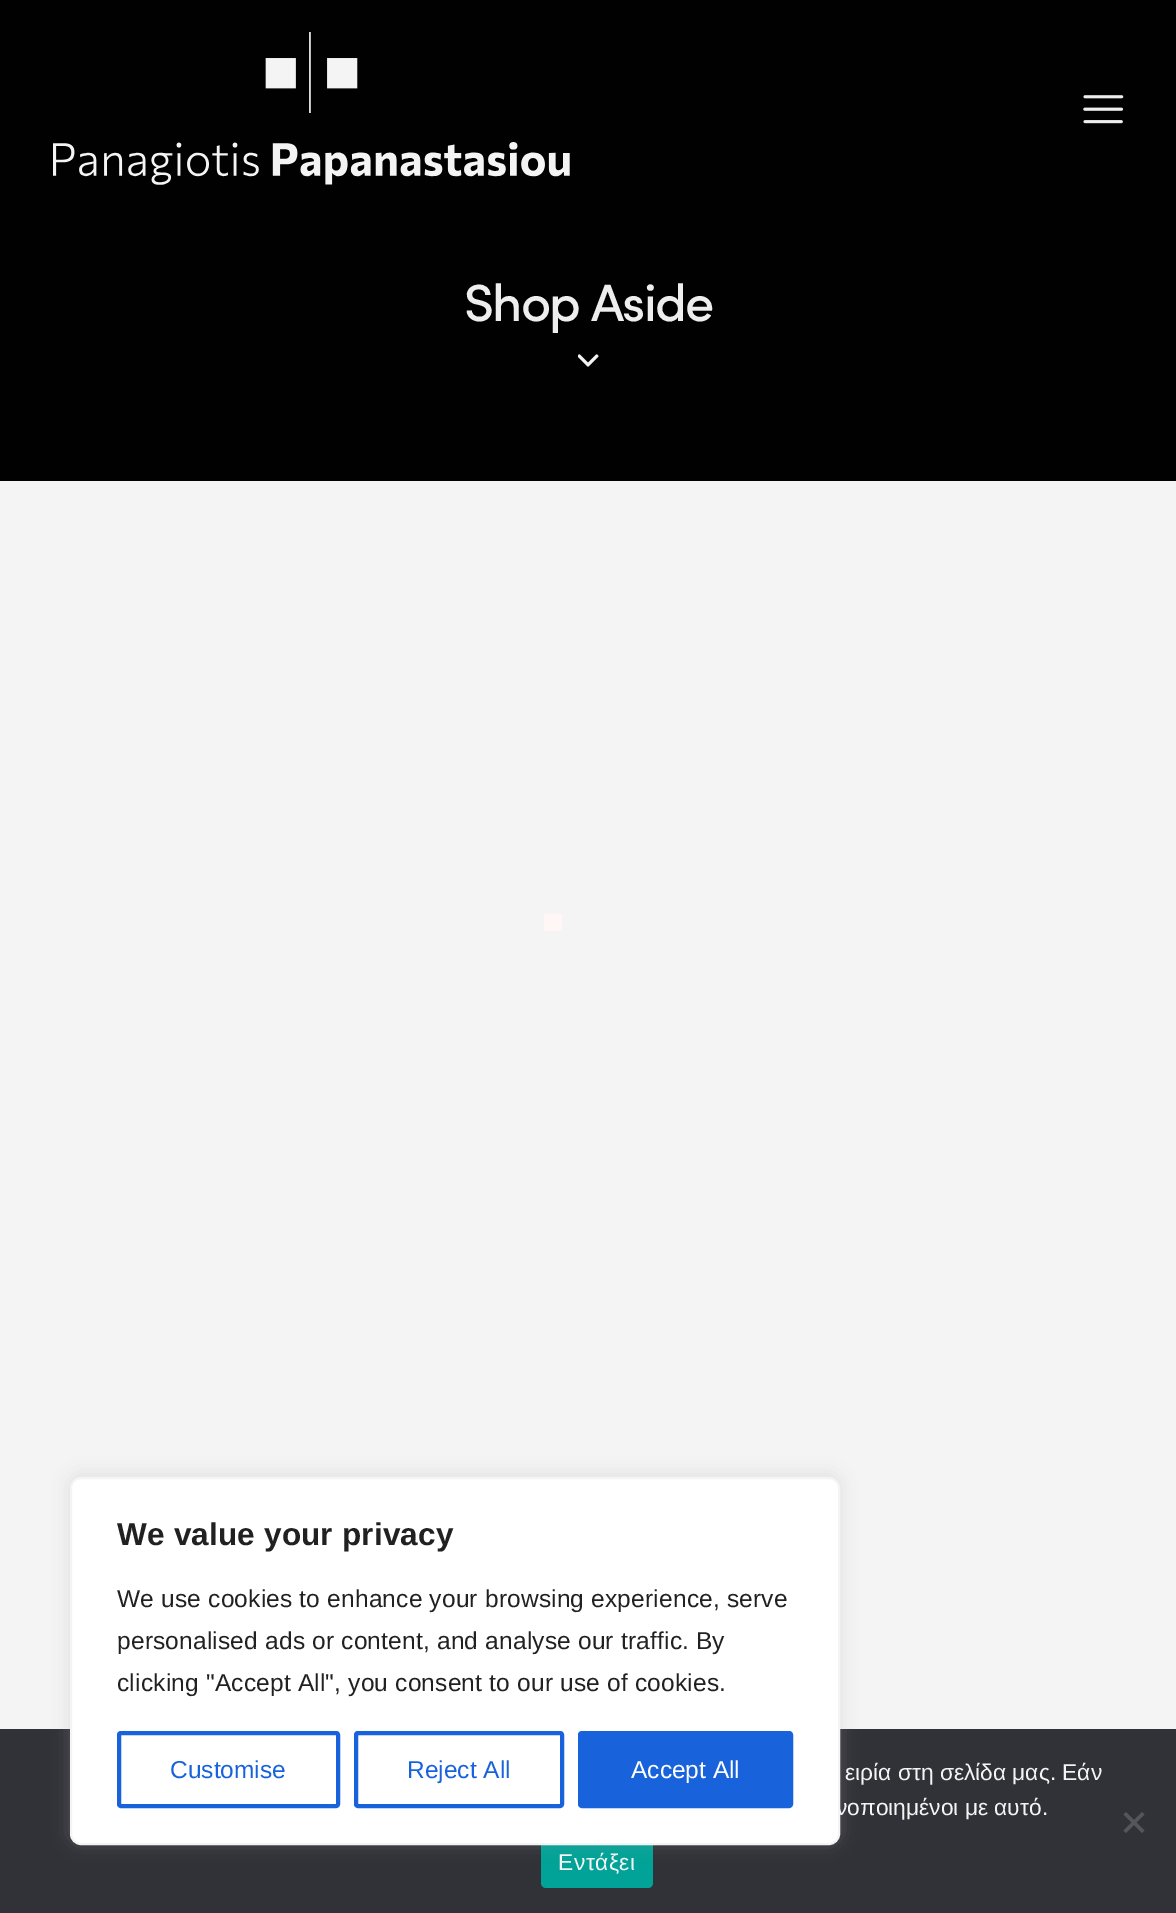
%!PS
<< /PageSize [1176 1913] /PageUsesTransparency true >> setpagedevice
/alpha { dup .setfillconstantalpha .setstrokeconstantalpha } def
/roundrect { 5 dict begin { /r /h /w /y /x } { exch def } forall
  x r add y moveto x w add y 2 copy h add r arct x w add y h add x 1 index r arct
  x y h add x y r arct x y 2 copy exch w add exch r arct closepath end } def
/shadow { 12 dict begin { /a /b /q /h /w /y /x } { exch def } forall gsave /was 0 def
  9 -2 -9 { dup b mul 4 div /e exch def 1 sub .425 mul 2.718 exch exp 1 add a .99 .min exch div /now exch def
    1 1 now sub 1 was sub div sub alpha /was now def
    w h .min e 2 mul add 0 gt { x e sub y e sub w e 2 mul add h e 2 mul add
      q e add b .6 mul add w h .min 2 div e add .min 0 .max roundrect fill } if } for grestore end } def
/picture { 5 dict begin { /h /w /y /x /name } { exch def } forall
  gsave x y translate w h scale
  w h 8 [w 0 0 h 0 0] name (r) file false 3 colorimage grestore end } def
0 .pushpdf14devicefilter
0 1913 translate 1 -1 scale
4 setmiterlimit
0.957 setgray
0 0 1176 1913 rectfill
0.004 setgray
0 0 1176 481 rectfill
(img1.rgb) 53 32 517 153 picture
(img2.rgb) 1083 95 41 29 picture
/Sofia-Medium [52.5 0 0 -52.5 0 0] selectfont
0.933 setgray
464 321 moveto -1.75 0 (Shop Aside) ashow
(img3.rgb) 578 354 21 13 picture
1 0.969 0.965 setrgbcolor
544 914 18 17 rectfill
0.192 0.192 0.22 setrgbcolor
0 1729 1176 184 rectfill
0.004 0.635 0.592 setrgbcolor
541 1836 112 52 5 roundrect fill
0.675 0.671 0.671 setrgbcolor
70 1475 770 368 11 9 0.3 shadow
/LiberationSans-Regular [22.75 0 0 -22.75 0 0] selectfont
0.957 setgray
836 1815 moveto (νοποιημένοι με αυτό.) show
1 setgray
71 1478 768 366 10 roundrect gsave fill grestore
0.957 setgray
2 setlinewidth
stroke
/LiberationSans-Bold [31.5 0 0 -31.5 0 0] selectfont
0.129 setgray
117 1545 moveto 0.18 0 (We value your privacy) ashow
/LiberationSans-Regular [24.5 0 0 -24.5 0 0] selectfont
117 1607 moveto 0.18 0 (We use cookies to enhance your browsing experience, serve) ashow
117 1649 moveto 0.18 0 (personalised ads or content, and analyse our traffic. By) ashow
117 1691 moveto 0.18 0 (clicking "Accept All", you consent to our use of cookies.) ashow
0.094 0.388 0.863 setrgbcolor
4 setlinewidth
119 1733 219 73 2 roundrect stroke
170 1778 moveto (Customise) show
356 1733 206 73 2 roundrect stroke
407 1778 moveto (Reject All) show
580 1733 211 73 2 roundrect gsave fill grestore
stroke
1 setgray
631 1778 moveto (Accept All) show
/LiberationSans-Regular [22.75 0 0 -22.75 0 0] selectfont
0.957 setgray
845 1780 moveto (ειρία στη σελίδα μας. Εάν) show
0.337 0.337 0.353 setrgbcolor
newpath 1142 1812 moveto 1144.5 1814.5 lineto 1126 1833 lineto 1123.5 1830.5 lineto closepath fill
newpath 1123.5 1814.5 moveto 1126 1812 lineto 1144.5 1830.5 lineto 1142 1833 lineto closepath fill
0.957 setgray
558 1870 moveto 0.5 0 (Εντάξει) ashow
.poppdf14devicefilter showpage
